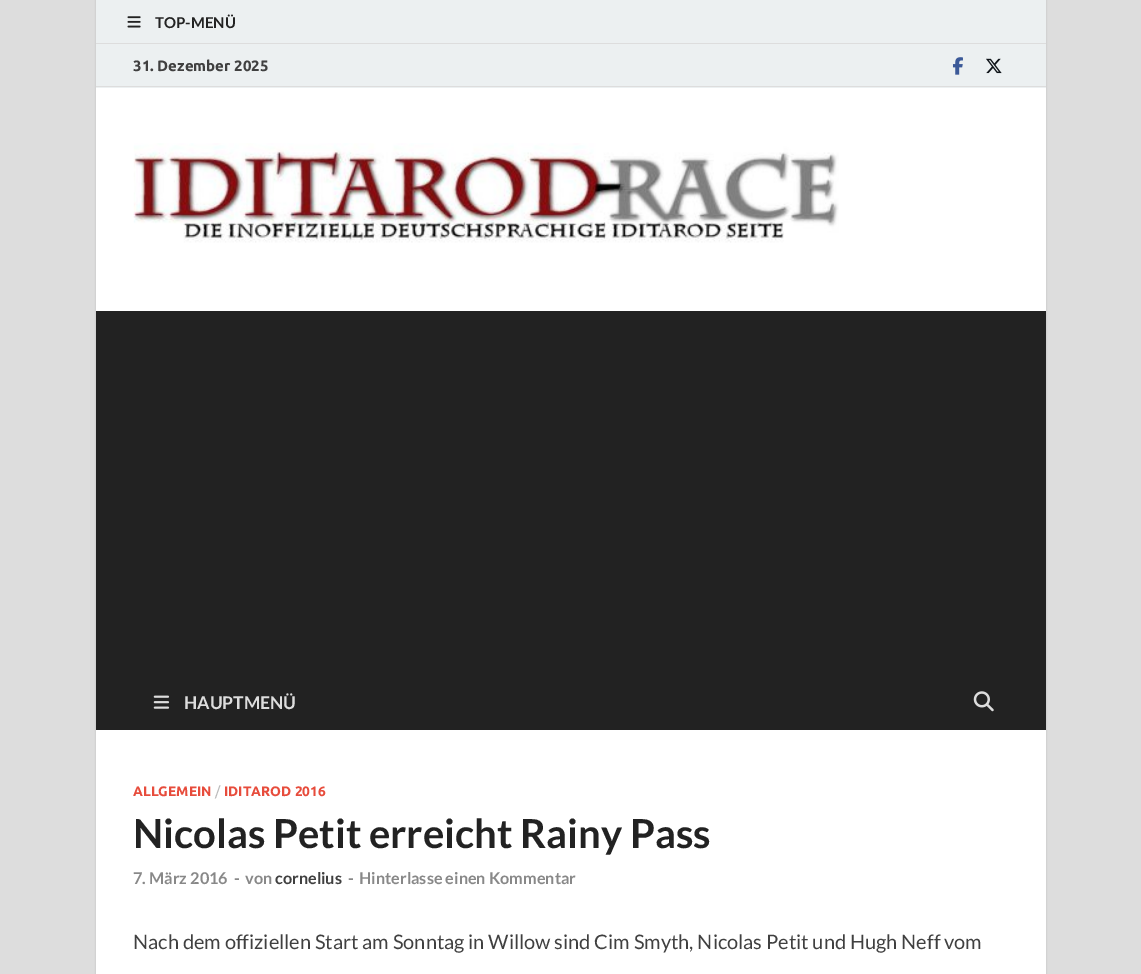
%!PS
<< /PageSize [1141 974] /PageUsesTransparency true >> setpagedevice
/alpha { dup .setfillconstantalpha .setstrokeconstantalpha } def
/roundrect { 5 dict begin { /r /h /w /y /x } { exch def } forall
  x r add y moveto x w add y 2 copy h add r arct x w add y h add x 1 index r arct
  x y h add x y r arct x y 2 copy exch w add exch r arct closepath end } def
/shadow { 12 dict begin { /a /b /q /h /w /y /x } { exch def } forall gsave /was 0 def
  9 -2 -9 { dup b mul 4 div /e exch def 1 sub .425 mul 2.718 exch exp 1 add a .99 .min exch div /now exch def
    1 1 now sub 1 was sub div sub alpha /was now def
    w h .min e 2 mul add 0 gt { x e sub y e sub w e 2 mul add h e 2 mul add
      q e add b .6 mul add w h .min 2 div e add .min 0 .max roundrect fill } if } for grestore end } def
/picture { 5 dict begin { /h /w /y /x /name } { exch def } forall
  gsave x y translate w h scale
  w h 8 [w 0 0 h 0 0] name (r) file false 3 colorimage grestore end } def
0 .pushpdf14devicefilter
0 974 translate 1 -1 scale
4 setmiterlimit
0.867 setgray
0 0 1141 974 rectfill
0.733 setgray
96 0 950 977 0 1 1 shadow
1 setgray
96 88 950 886 rectfill
0.925 0.941 0.945 setrgbcolor
96 0 950 43 rectfill
0.867 setgray
96 43 950 1 rectfill
(img1.rgb) 127 16 14 12 picture
/Lato-Bold [15 0 0 -15 0 0] selectfont
0.133 setgray
155 28 moveto (TOP-MENÜ) show
0.925 0.941 0.945 setrgbcolor
96 44 950 44 rectfill
0.867 setgray
96 86 950 1 rectfill
/Ubuntu-Bold [15 0 0 -15 0 0] selectfont
0.251 setgray
133 71 moveto (31. Dezember 2025) show
(img2.rgb) 952 57 11 18 picture
(img3.rgb) 986 58 16 16 picture
(img4.rgb) 133 143 706 100 picture
0.133 setgray
96 311 950 419 rectfill
(img5.rgb) 153 695 17 14 picture
/Lato-Bold [17.5 0 0 -17.5 0 0] selectfont
0.867 setgray
184 709 moveto (HAUPTMENÜ) show
(img6.rgb) 973 691 21 21 picture
/Ubuntu-Bold [13.75 0 0 -13.75 0 0] selectfont
0.906 0.298 0.235 setrgbcolor
133 796 moveto (ALLGEMEIN) show
/Ubuntu-Regular [13.75 0 0 -13.75 0 0] selectfont
0.733 setgray
215 796 moveto (/) show
/Ubuntu-Bold [13.75 0 0 -13.75 0 0] selectfont
0.906 0.298 0.235 setrgbcolor
224 796 moveto (IDITAROD 2016) show
/Lato-Bold [40 0 0 -40 0 0] selectfont
0.133 setgray
133 848 moveto (Nicolas Petit erreicht Rainy Pass) show
/Lato-Bold [16.25 0 0 -16.25 0 0] selectfont
0.533 setgray
133 884 moveto (7. März 2016) show
234 884 moveto (-) show
245 884 moveto (von) show
0.251 setgray
275 884 moveto (cornelius) show
0.533 setgray
348 884 moveto (-) show
359 884 moveto (Hinterlasse einen Kommentar) show
/Lato-Regular [20 0 0 -20 0 0] selectfont
0.251 setgray
133 949 moveto (Nach dem offiziellen Start am Sonntag in Willow sind Cim Smyth, Nicolas Petit und Hugh Neff vom) show
.poppdf14devicefilter showpage
